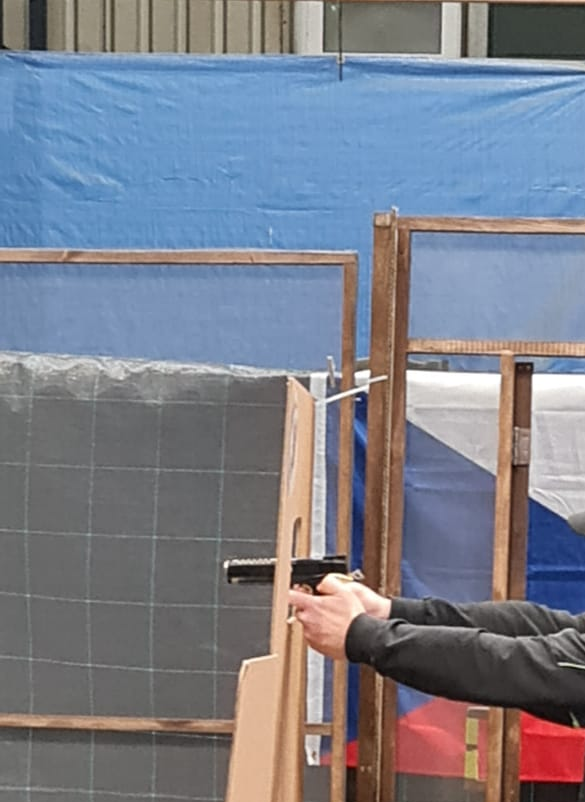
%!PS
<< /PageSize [585 802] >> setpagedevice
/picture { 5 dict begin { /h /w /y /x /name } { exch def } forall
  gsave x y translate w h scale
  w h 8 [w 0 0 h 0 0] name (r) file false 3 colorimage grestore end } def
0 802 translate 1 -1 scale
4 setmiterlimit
1 setgray
0 0 585 802 rectfill
(img1.rgb) 0 0 585 802 picture
showpage
